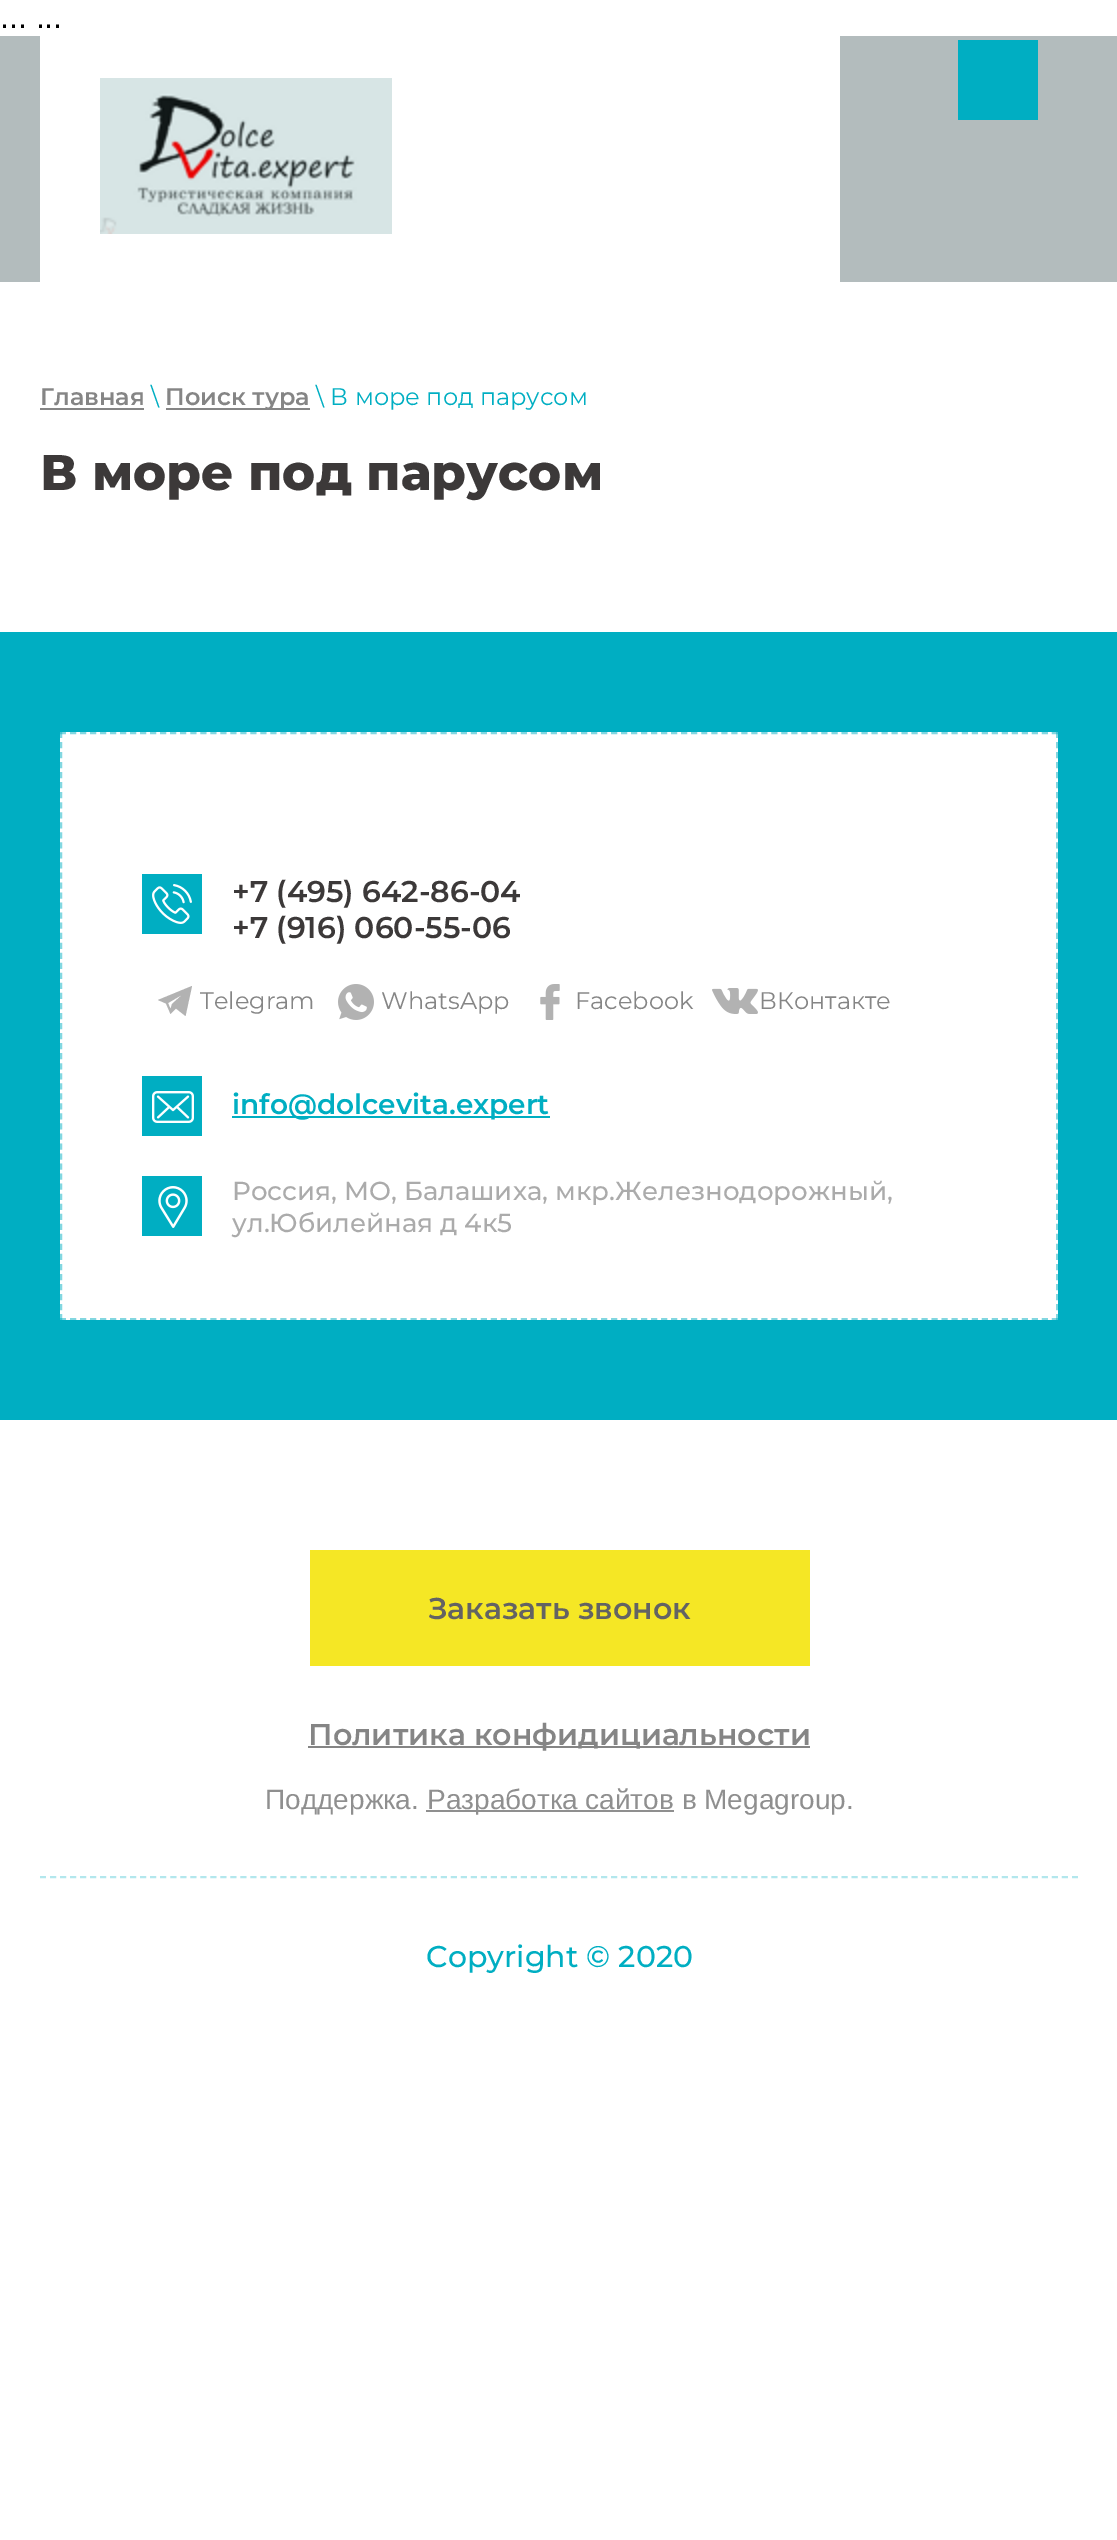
%!PS
<< /PageSize [1117 2540] /PageUsesTransparency true >> setpagedevice
/alpha { dup .setfillconstantalpha .setstrokeconstantalpha } def
/picture { 5 dict begin { /h /w /y /x /name } { exch def } forall
  gsave x y translate w h scale
  w h 8 [w 0 0 h 0 0] name (r) file false 3 colorimage grestore end } def
0 .pushpdf14devicefilter
0 2540 translate 1 -1 scale
4 setmiterlimit
1 setgray
0 0 1117 2540 rectfill
/LiberationSans-Regular [32 0 0 -32 0 0] selectfont
0 setgray
0 28 moveto (... ...) show
0.702 0.737 0.741 setrgbcolor
0 36 1117 246 rectfill
1 setgray
40 36 800 246 rectfill
(img1.rgb) 100 78 292 156 picture
0 0.682 0.761 setrgbcolor
958 40 80 80 rectfill
/Montserrat-SemiBold [24 0 0 -24 0 0] selectfont
0.522 setgray
40 405 moveto (Главная) show
40 408 104 2 rectfill
/Montserrat-Regular [24 0 0 -24 0 0] selectfont
0 0.682 0.761 setrgbcolor
151 405 moveto (\\) show
0.522 setgray
166 408 144 2 rectfill
/Montserrat-SemiBold [24 0 0 -24 0 0] selectfont
165 405 moveto (Поиск тура) show
/Montserrat-Regular [24 0 0 -24 0 0] selectfont
0 0.682 0.761 setrgbcolor
316 405 moveto (\\ В море под парусом) show
/Montserrat-ExtraBold [50 0 0 -50 0 0] selectfont
0.235 0.224 0.224 setrgbcolor
40 490 moveto (В море под парусом) show
0 0.682 0.761 setrgbcolor
0 632 1117 788 rectfill
1 setgray
60 732 998 588 rectfill
0.51 0.843 0.882 setrgbcolor
2 setlinewidth
[6 4.02] 0 setdash
newpath 60 733 moveto 1058 733 lineto stroke
0.49 alpha
0 0.682 0.761 setrgbcolor
[6 4.04] 0 setdash
newpath 1057 732 moveto 1057 1320 lineto stroke
[6 4.02] 0 setdash
newpath 60 1319 moveto 1058 1319 lineto stroke
[6 4.04] 0 setdash
newpath 61 732 moveto 61 1320 lineto stroke
1 alpha
142 874 60 60 rectfill
(img2.rgb) 152 884 40 40 picture
/Montserrat-SemiBold [30 0 0 -30 0 0] selectfont
0.235 0.224 0.224 setrgbcolor
232 902 moveto (+7 \(495\) 642-86-04) show
232 938 moveto (+7 \(916\) 060-55-06) show
0.698 setgray
newpath 166 1003.5 moveto 170.5 1014 lineto 176 1008.5 lineto 185.5 1016 lineto 192 986 lineto 158 1000 lineto closepath 182.5 994.5 moveto 172 1004 lineto 170.5 1009 lineto 168 1003 lineto closepath fill
/Montserrat-Regular [24 0 0 -24 0 0] selectfont
0.522 setgray
200 1009 moveto (Telegram) show
(img3.rgb) 338 984 36 36 picture
381 1009 moveto (WhatsApp) show
(img4.rgb) 540 984 20 36 picture
575 1009 moveto (Facebook) show
(img5.rgb) 712 988 46 26 picture
759 1009 moveto (ВКонтакте) show
0 0.682 0.761 setrgbcolor
142 1076 60 60 rectfill
(img6.rgb) 152 1091 42 32 picture
232 1116 318 2 rectfill
/Montserrat-SemiBold [28 0 0 -28 0 0] selectfont
232 1114 moveto (info@dolcevita.expert) show
142 1176 60 60 rectfill
(img7.rgb) 158 1186 30 42 picture
/Montserrat-Medium [26 0 0 -26 0 0] selectfont
0.671 setgray
232 1200 moveto (Россия, МО, Балашиха, мкр.Железнодорожный,) show
232 1232 moveto (ул.Юбилейная д 4к5) show
0.961 0.906 0.145 setrgbcolor
310 1550 500 116 rectfill
/Montserrat-SemiBold [30 0 0 -30 0 0] selectfont
0.388 setgray
428 1619 moveto (Заказать звонок) show
0.522 setgray
308 1746 502 2 rectfill
308 1745 moveto (Политика конфидициальности) show
/LiberationSans-Regular [28 0 0 -28 0 0] selectfont
0.561 setgray
265 1809 moveto (Поддержка.) show
426 1810 248 2 rectfill
427 1809 moveto (Разработка сайтов в Megagroup.) show
0.702 0.906 0.929 setrgbcolor
[6 4.02] 0 setdash
newpath 40 1877 moveto 1078 1877 lineto stroke
/Montserrat-Medium [30 0 0 -30 0 0] selectfont
0 0.682 0.761 setrgbcolor
426 1967 moveto (Copyright © 2020) show
.poppdf14devicefilter showpage
